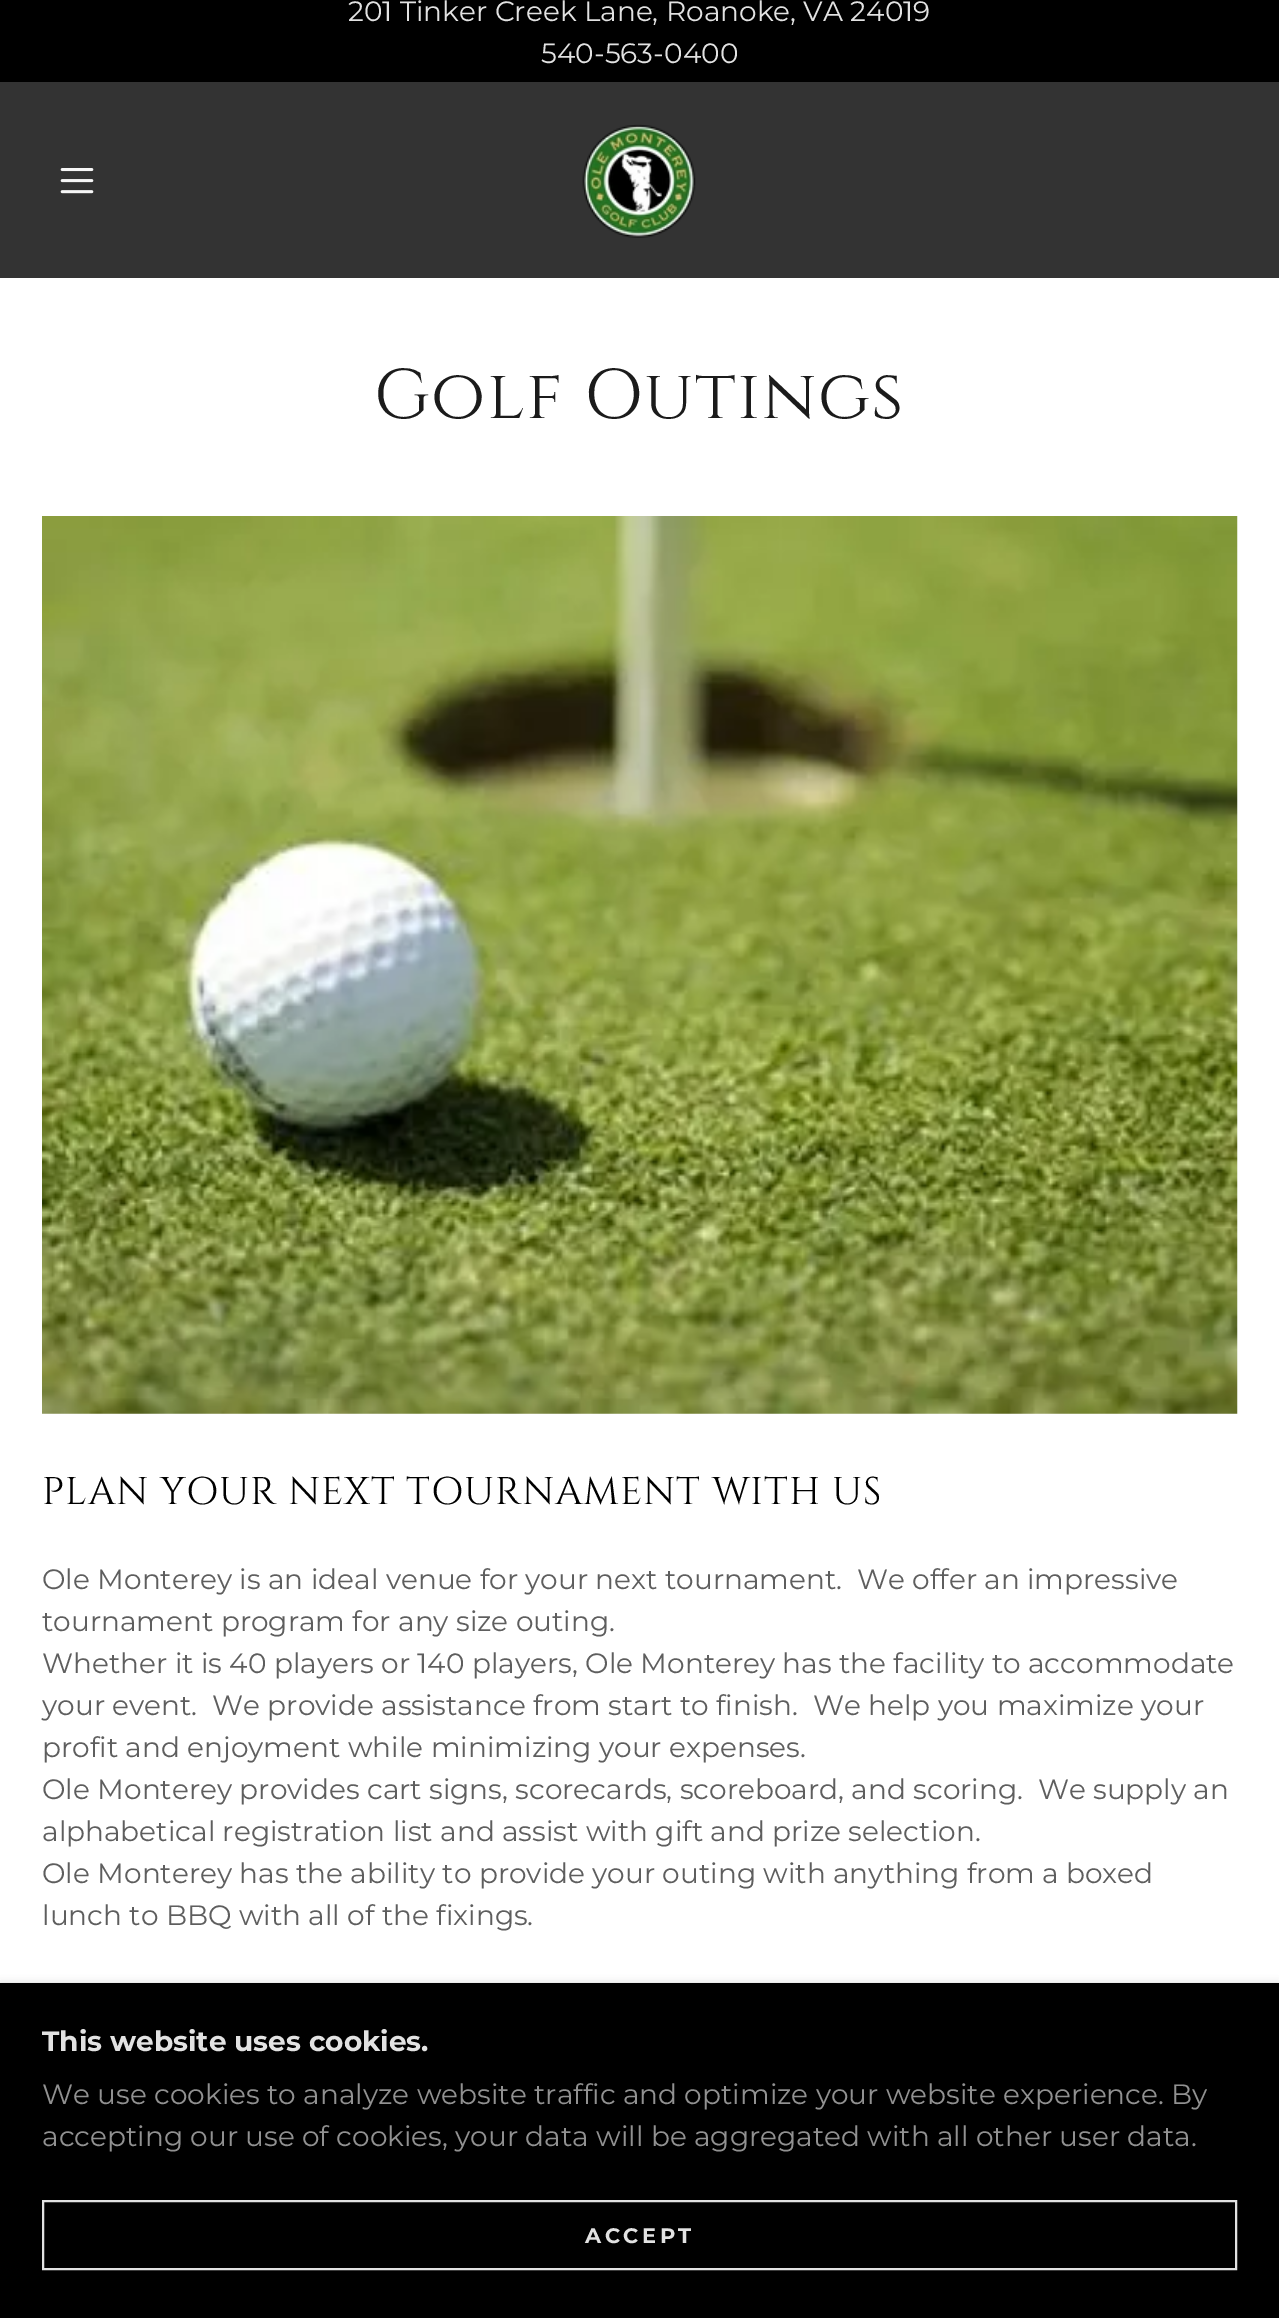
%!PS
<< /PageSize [1279 2318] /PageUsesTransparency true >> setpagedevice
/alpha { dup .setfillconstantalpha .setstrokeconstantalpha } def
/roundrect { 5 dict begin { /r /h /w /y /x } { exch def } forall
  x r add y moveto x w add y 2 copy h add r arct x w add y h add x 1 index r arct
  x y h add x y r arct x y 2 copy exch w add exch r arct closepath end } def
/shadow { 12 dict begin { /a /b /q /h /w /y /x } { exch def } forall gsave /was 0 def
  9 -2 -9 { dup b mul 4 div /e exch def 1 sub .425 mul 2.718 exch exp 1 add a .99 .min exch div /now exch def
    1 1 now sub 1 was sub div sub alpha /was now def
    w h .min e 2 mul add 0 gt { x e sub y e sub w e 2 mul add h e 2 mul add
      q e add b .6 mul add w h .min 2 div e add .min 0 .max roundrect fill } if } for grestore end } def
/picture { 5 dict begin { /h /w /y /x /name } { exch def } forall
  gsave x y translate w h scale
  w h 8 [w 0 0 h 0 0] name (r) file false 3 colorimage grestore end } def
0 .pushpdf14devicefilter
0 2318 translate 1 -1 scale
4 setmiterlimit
1 setgray
0 0 1279 2318 rectfill
0 setgray
0 0 1279 82 rectfill
/Montserrat-Regular [28 0 0 -28 0 0] selectfont
0.886 setgray
348 21 moveto (201 Tinker Creek Lane, Roanoke, VA 24019) show
541 63 moveto (540-563-0400) show
0.2 setgray
0 82 1279 196 rectfill
(img1.rgb) 60 168 34 26 picture
(img2.rgb) 582 124 114 114 picture
/Cinzel-Regular [70 0 0 -70 0 0] selectfont
0.106 setgray
374 418 moveto 1.6 0 (Golf Outings) ashow
(img3.rgb) 42 516 1196 898 picture
/Cinzel-Regular [38.5 0 0 -38.5 0 0] selectfont
0 setgray
42 1504 moveto 0.9 0 (PLAN YOUR NEXT TOURNAMENT WITH US) ashow
/Montserrat-Regular [28 0 0 -28 0 0] selectfont
0.369 setgray
42 1589 moveto (Ole Monterey is an ideal venue for your next tournament.  We offer an impressive) show
42 1631 moveto (tournament program for any size outing.) show
42 1673 moveto (Whether it is 40 players or 140 players, Ole Monterey has the facility to accommodate) show
42 1715 moveto (your event.  We provide assistance from start to finish.  We help you maximize your) show
42 1757 moveto (profit and enjoyment while minimizing your expenses.) show
42 1799 moveto (Ole Monterey provides cart signs, scorecards, scoreboard, and scoring.  We supply an) show
42 1841 moveto (alphabetical registration list and assist with gift and prize selection.) show
42 1883 moveto (Ole Monterey has the ability to provide your outing with anything from a boxed) show
42 1925 moveto (lunch to BBQ with all of the fixings.) show
0 setgray
0 1986 1279 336 0 5 0.3 shadow
0 1983 1279 335 rectfill
/Montserrat-Bold [28 0 0 -28 0 0] selectfont
0.886 setgray
42 2051 moveto (This website uses cookies.) show
/Montserrat-Regular [28 0 0 -28 0 0] selectfont
0.569 setgray
42 2104 moveto (We use cookies to analyze website traffic and optimize your website experience. By) show
42 2146 moveto (accepting our use of cookies, your data will be aggregated with all other user data.) show
0.886 setgray
2 setlinewidth
43 2201 1193 68 rectstroke
/Montserrat-Bold [21 0 0 -21 0 0] selectfont
585 2243 moveto 3.5 0 (ACCEPT) ashow
.poppdf14devicefilter showpage
